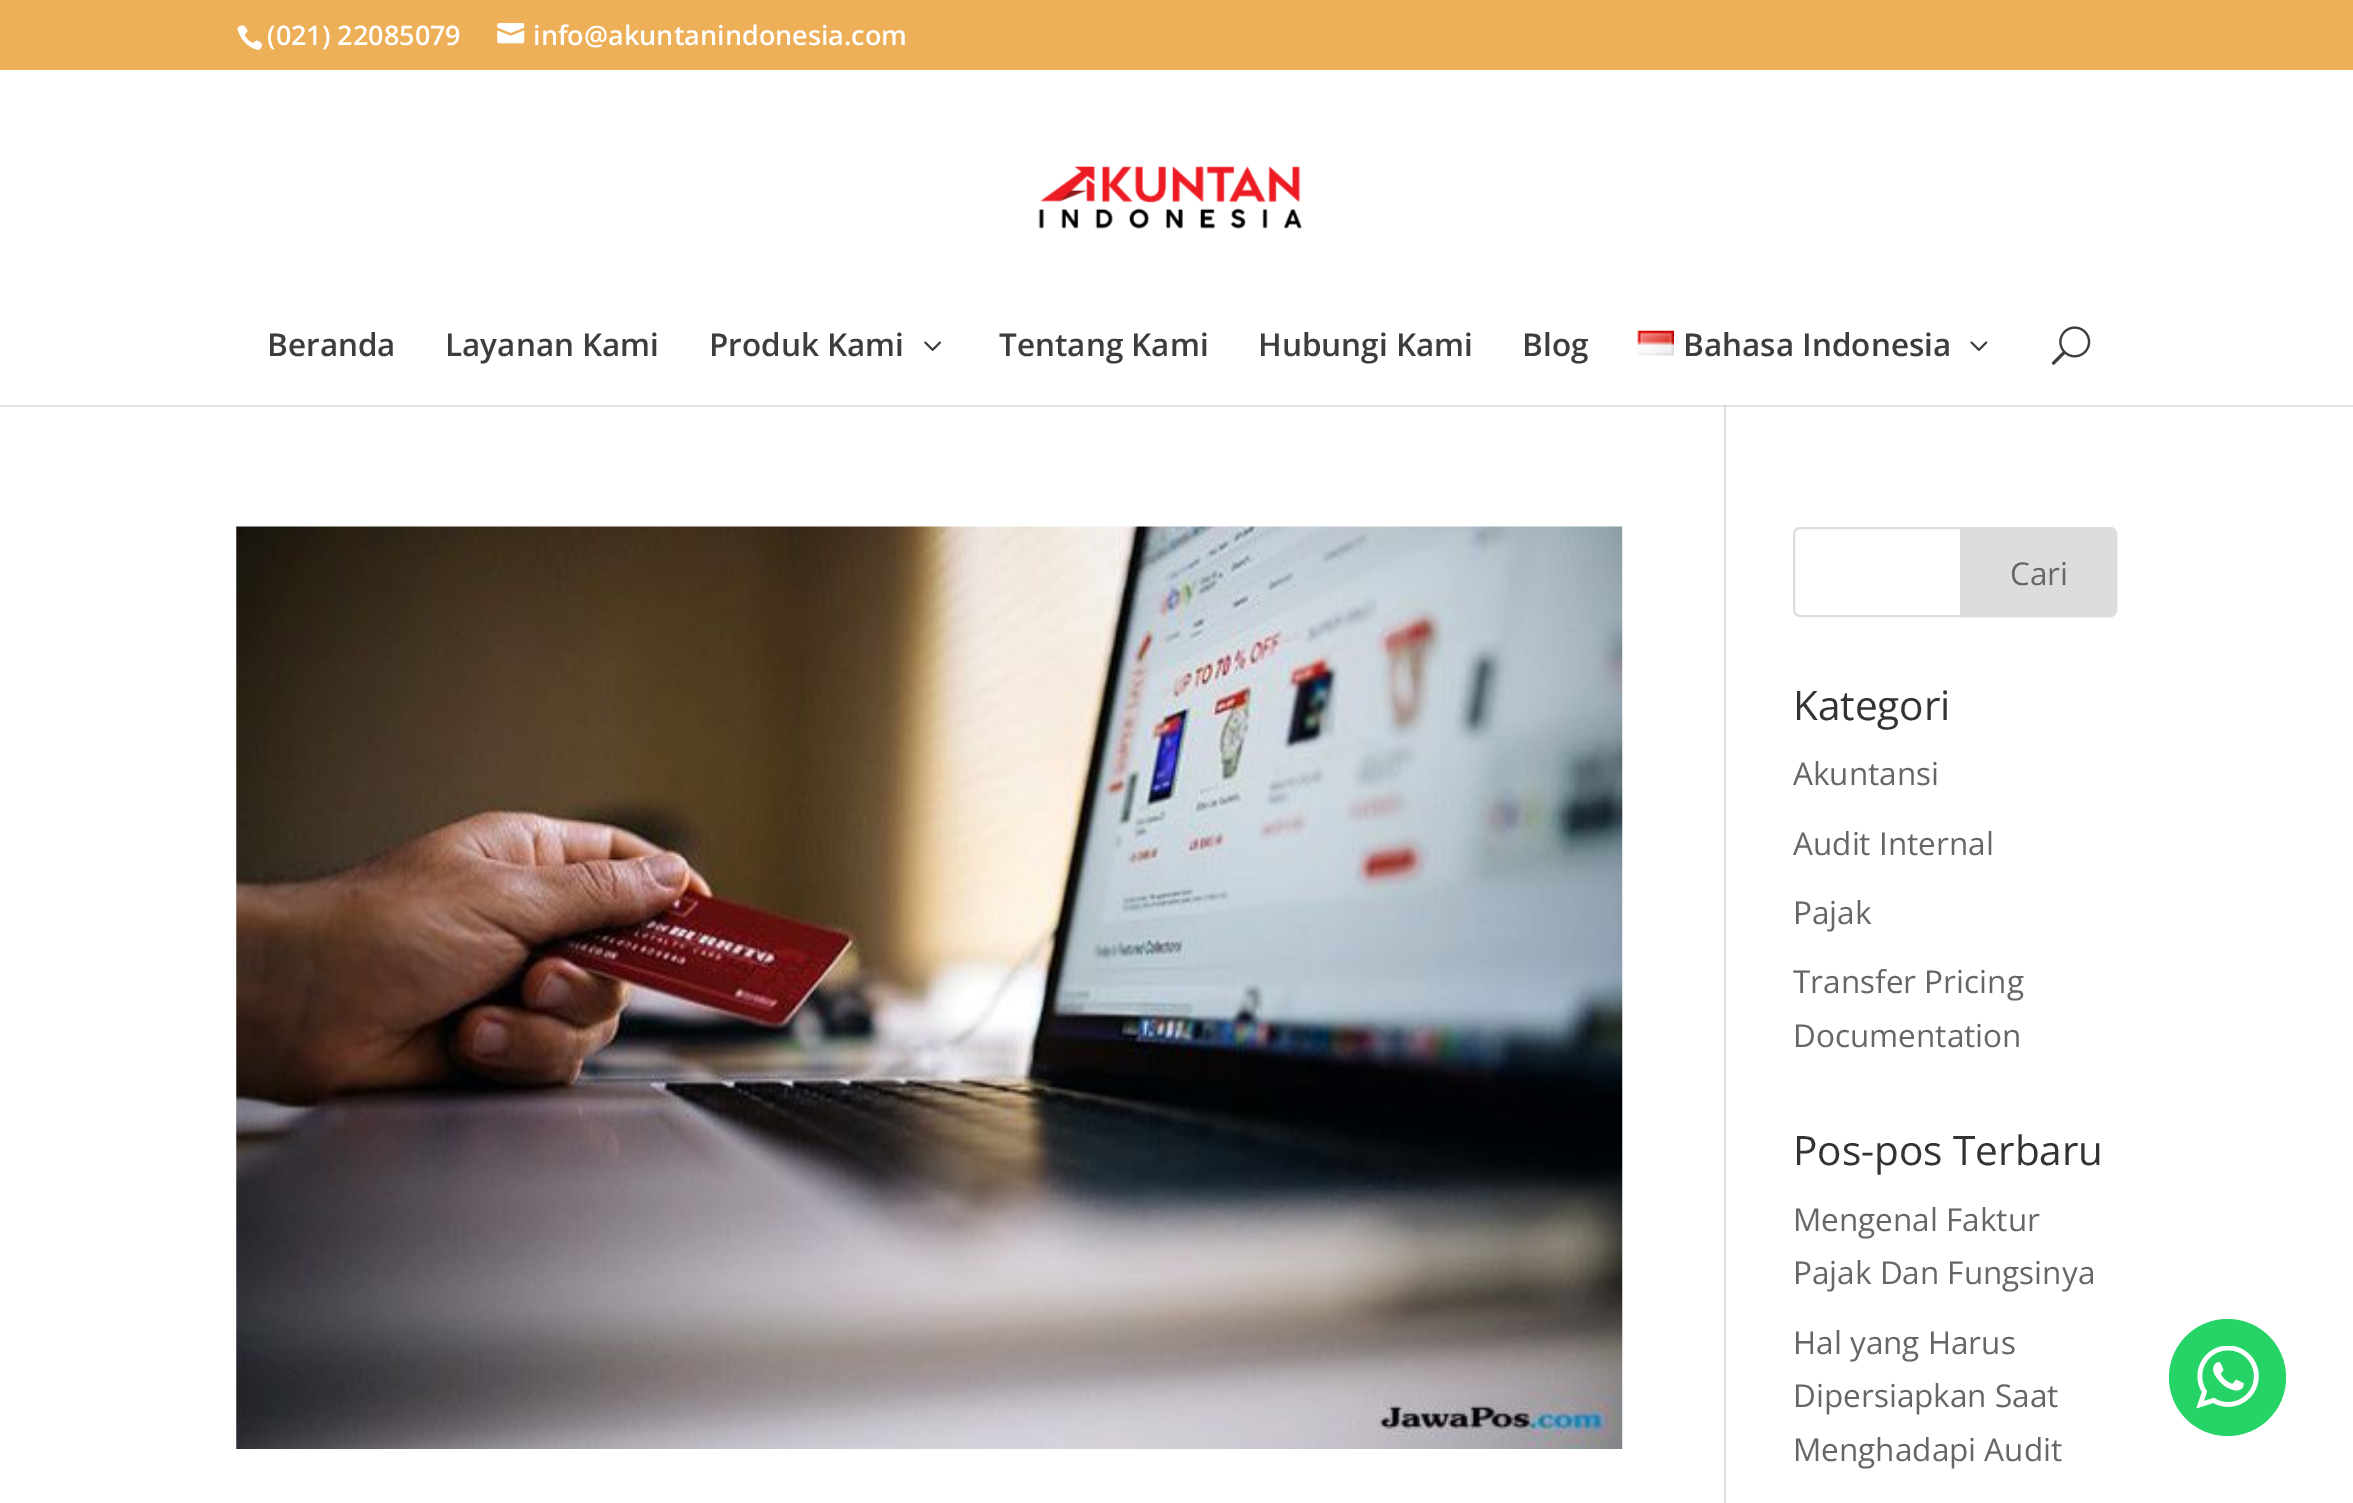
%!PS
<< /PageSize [2353 1503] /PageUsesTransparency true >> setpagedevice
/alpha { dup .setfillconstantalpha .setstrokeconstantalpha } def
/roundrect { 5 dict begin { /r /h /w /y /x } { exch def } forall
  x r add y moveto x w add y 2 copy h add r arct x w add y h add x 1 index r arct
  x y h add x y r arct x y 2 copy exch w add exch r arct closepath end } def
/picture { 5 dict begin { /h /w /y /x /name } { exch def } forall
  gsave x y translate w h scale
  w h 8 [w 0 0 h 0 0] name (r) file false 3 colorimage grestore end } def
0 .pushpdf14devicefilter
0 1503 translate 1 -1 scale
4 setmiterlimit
1 setgray
0 0 2353 1503 rectfill
0.929 0.69 0.349 setrgbcolor
0 0 2353 70 rectfill
(img1.rgb) 237 25 26 26 picture
/OpenSans-SemiBold [27 0 0 -27 0 0] selectfont
1 setgray
267 45 moveto (\(021\) 22085079) show
(img2.rgb) 497 23 28 21 picture
533 45 moveto (info@akuntanindonesia.com) show
0.886 setgray
1724 405 2 1098 rectfill
0.1 alpha
0 setgray
newpath 0 405 moveto 0 407 lineto 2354 407 lineto 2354 72 lineto 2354 405 lineto closepath fill
1 alpha
(img3.rgb) 1038 166 264 63 picture
/OpenSans-SemiBold [31.5 0 0 -31.5 0 0] selectfont
0.239 setgray
267 356 moveto (Beranda) show
445 356 moveto (Layanan Kami) show
709 356 moveto (Produk Kami) show
(img4.rgb) 924 341 17 10 picture
999 356 moveto (Tentang Kami) show
1258 356 moveto (Hubungi Kami) show
1522 356 moveto (Blog) show
(img5.rgb) 1637 330 37 26 picture
1683 356 moveto (Bahasa Indonesia) show
(img6.rgb) 1970 341 18 10 picture
(img7.rgb) 2051 326 40 39 picture
(img8.rgb) 236 526 1387 923 picture
0.867 setgray
2 setlinewidth
1794 528 322 88 6 roundrect stroke
newpath 1961 528 moveto 2110 528 lineto 2113.5 528 2116 530.5 2116 534 curveto 2116 610 lineto 2116 613.5 2113.5 616 2110 616 curveto 1961 616 lineto closepath gsave fill grestore
stroke
/OpenSans-Regular [31.5 0 0 -31.5 0 0] selectfont
0.4 setgray
2010 585 moveto (Cari) show
/OpenSans-Regular [40.5 0 0 -40.5 0 0] selectfont
0.2 setgray
1793 720 moveto (Kategori) show
/OpenSans-Regular [31.5 0 0 -31.5 0 0] selectfont
0.4 setgray
1793 785 moveto (Akuntansi) show
1793 855 moveto (Audit Internal) show
1793 924 moveto (Pajak) show
1793 993 moveto (Transfer Pricing) show
1793 1047 moveto (Documentation) show
/OpenSans-Regular [40.5 0 0 -40.5 0 0] selectfont
0.2 setgray
1793 1165 moveto (Pos-pos Terbaru) show
/OpenSans-Regular [31.5 0 0 -31.5 0 0] selectfont
0.4 setgray
1793 1231 moveto (Mengenal Faktur) show
1793 1284 moveto (Pajak Dan Fungsinya) show
1793 1354 moveto (Hal yang Harus) show
1793 1407 moveto (Dipersiapkan Saat) show
1793 1461 moveto (Menghadapi Audit) show
0.145 0.827 0.4 setrgbcolor
newpath 2227.5 1377.5 58.5 0 360 arc closepath fill
(img9.rgb) 2196 1346 63 63 picture
.poppdf14devicefilter showpage
